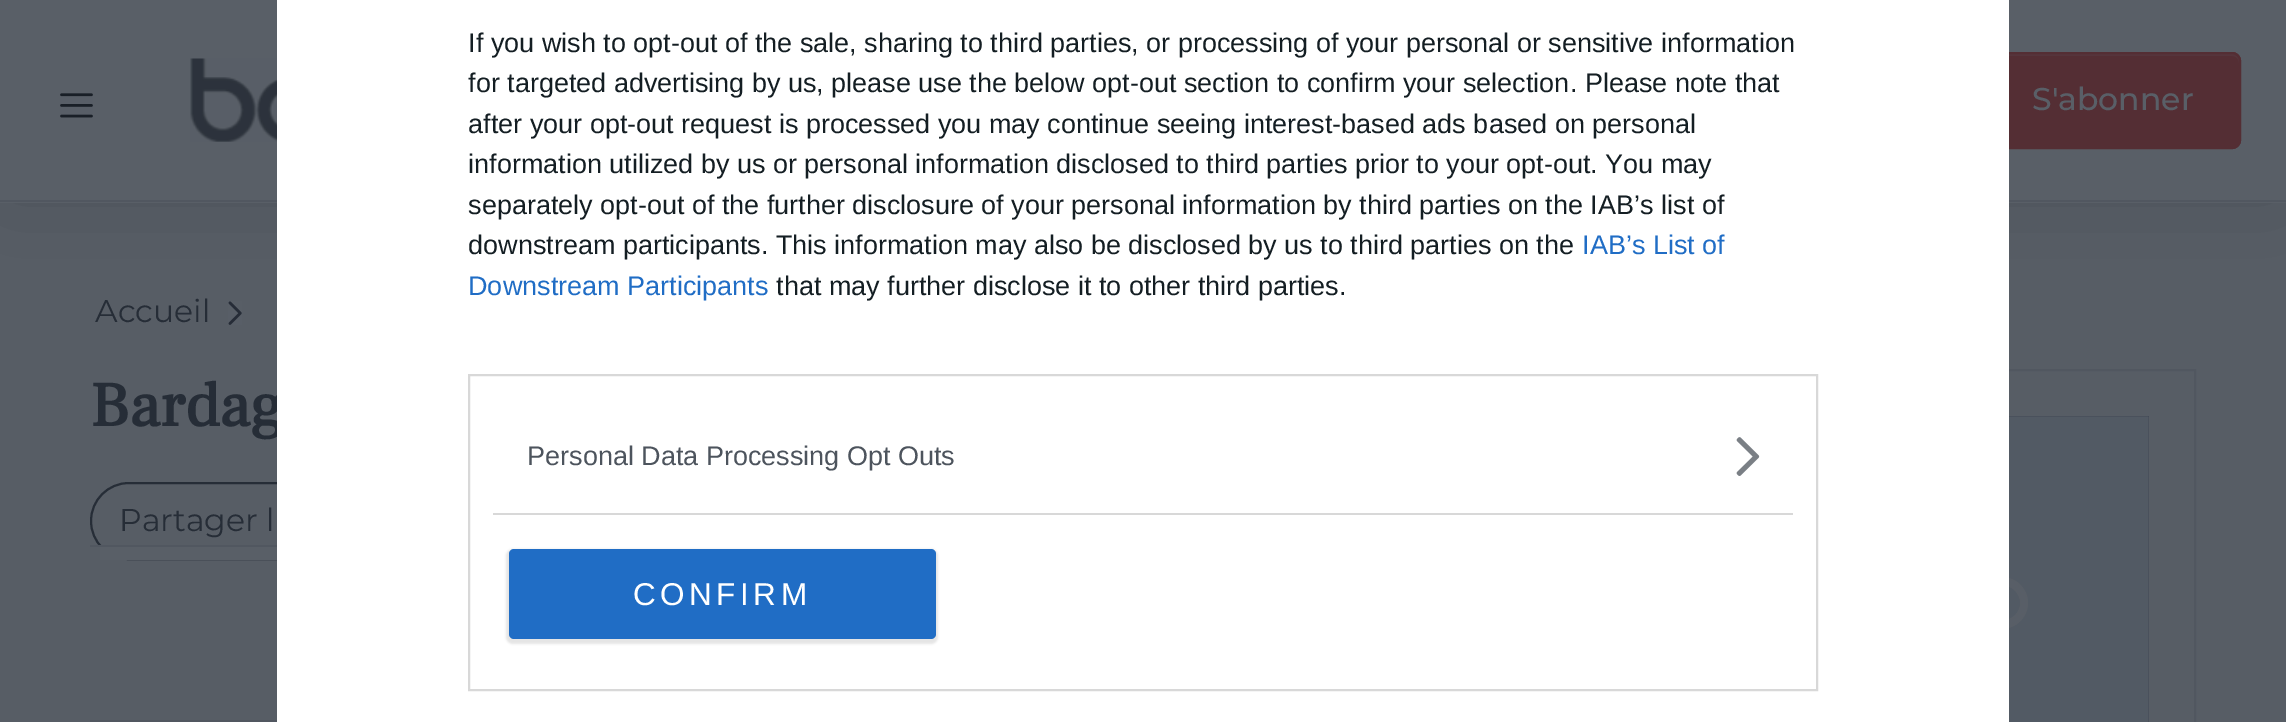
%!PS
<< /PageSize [2286 722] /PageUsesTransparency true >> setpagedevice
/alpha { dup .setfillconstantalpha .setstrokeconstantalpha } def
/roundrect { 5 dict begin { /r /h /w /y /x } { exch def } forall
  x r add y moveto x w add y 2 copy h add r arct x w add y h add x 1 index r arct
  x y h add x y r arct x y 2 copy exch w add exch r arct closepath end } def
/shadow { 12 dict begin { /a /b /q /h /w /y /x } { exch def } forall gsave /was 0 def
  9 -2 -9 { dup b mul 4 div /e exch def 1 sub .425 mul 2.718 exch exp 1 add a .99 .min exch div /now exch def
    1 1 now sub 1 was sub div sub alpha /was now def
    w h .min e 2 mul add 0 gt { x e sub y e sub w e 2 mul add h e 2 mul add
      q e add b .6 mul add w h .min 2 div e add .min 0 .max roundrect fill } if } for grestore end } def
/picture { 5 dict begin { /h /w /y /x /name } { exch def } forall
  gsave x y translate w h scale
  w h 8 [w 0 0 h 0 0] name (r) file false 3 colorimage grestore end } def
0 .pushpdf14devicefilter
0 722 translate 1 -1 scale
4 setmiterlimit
0.341 0.365 0.396 setrgbcolor
0 0 2286 722 rectfill
(img4.rgb) 228 301 14 24 picture
0.098 0.122 0.153 setrgbcolor
0 -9 2286 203 0 52 0.2 shadow
0.349 0.373 0.404 setrgbcolor
0 0 2286 203 rectfill
0.318 0.341 0.376 setrgbcolor
0 200 2286 2 rectfill
0.329 0.18 0.204 setrgbcolor
1985 52 256 97 9 roundrect fill
0.333 0.208 0.235 setrgbcolor
newpath 1994 56 moveto 2232 56 lineto 2236 56 2239 59 2239 63 curveto 2239 61 lineto 2239 57 2236 54 2232 54 curveto 1994 54 lineto 1990 54 1987 57 1987 61 curveto 1987 63 lineto 1987 59 1990 56 1994 56 curveto closepath fill
0.329 0.18 0.204 setrgbcolor
2 setlinewidth
1986 53 254 95 8 roundrect stroke
/FrankRuhlLibre-Bold [63 0 0 -63 0 0] selectfont
0.149 0.176 0.216 setrgbcolor
90 426 moveto (Bardag) show
91 483 594 76 38 roundrect stroke
0.318 0.341 0.376 setrgbcolor
1531 370 664 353 rectstroke
1 setgray
277 0 1732 722 rectfill
/LiberationSans-Regular [27 0 0 -27 0 0] selectfont
0.078 0.118 0.137 setrgbcolor
468 52 moveto (If you wish to opt-out of the sale, sharing to third parties, or processing of your personal or sensitive information) show
468 92 moveto (for targeted advertising by us, please use the below opt-out section to confirm your selection. Please note that) show
468 133 moveto (after your opt-out request is processed you may continue seeing interest-based ads based on personal) show
468 173 moveto (information utilized by us or personal information disclosed to third parties prior to your opt-out. You may) show
468 214 moveto (separately opt-out of the further disclosure of your personal information by third parties on the IAB’s list of) show
468 254 moveto (downstream participants. This information may also be disclosed by us to third parties on the) show
0.125 0.427 0.773 setrgbcolor
1582 254 moveto (IAB’s List of) show
468 295 moveto (Downstream Participants) show
0.078 0.118 0.137 setrgbcolor
776 295 moveto (that may further disclose it to other third parties.) show
0.847 setgray
469 375 1348 315 rectstroke
493 513 1300 2 rectfill
0.302 0.329 0.365 setrgbcolor
527 465 moveto (Personal Data Processing Opt Outs) show
(img1.rgb) 1736 437 24 39 picture
0 setgray
506 549 432 95 7 1 0.1 shadow
0.125 0.427 0.773 setrgbcolor
509 549 427 90 5 roundrect fill
/LiberationSans-Regular [31.5 0 0 -31.5 0 0] selectfont
1 setgray
633 605 moveto 4.5 0 (CONFIRM) ashow
(img2.rgb) 60 93 33 25 picture
(img3.rgb) 190 58 87 84 picture
/Montserrat-Medium [31.5 0 0 -31.5 0 0] selectfont
0.349 0.373 0.404 setrgbcolor
2032 110 moveto (S'abonner) show
/Montserrat-Regular [31.5 0 0 -31.5 0 0] selectfont
0.149 0.176 0.216 setrgbcolor
95 322 moveto (Accueil) show
119 531 moveto (Partager l) show
0.349 0.373 0.404 setrgbcolor
100 547 177 13 rectfill
0.318 0.341 0.376 setrgbcolor
90 545 187 2 rectfill
90 720 187 2 rectfill
0.192 0.22 0.271 setrgbcolor
2009 416 140 306 rectfill
(img5.rgb) 2009 416 140 306 picture
.poppdf14devicefilter showpage
